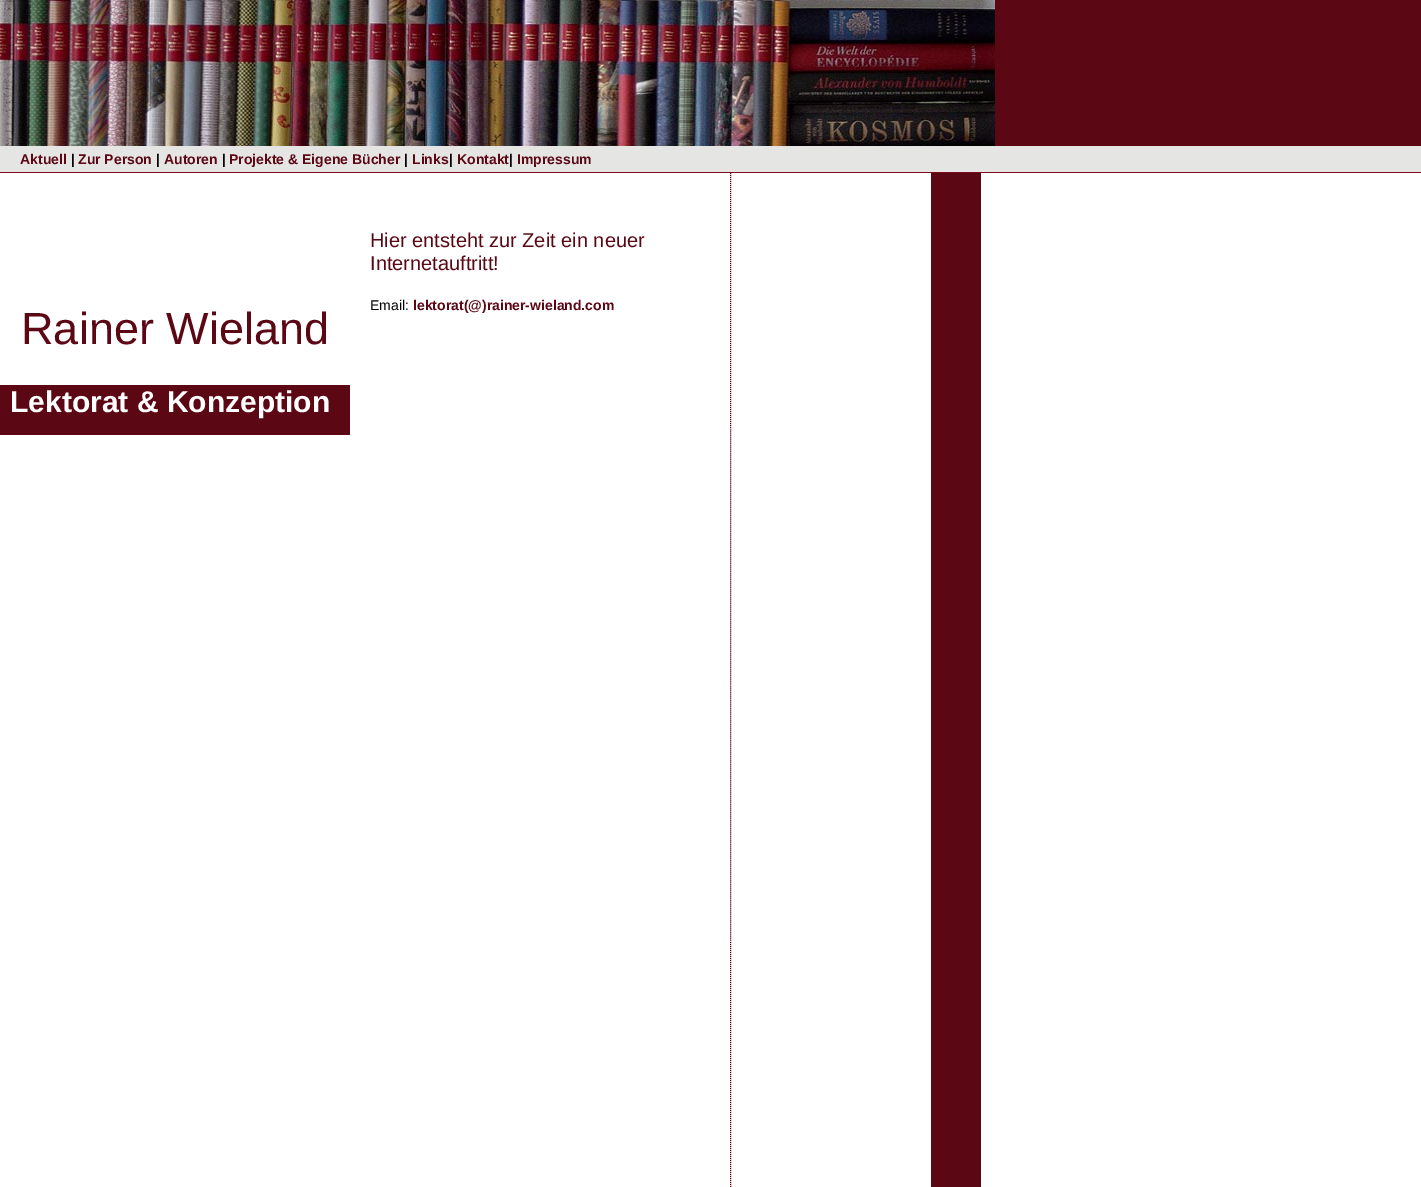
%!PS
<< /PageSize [1421 1187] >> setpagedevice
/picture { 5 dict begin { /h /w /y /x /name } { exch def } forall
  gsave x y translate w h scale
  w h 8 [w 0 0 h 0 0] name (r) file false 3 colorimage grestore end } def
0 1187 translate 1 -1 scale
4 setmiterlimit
1 setgray
0 0 1421 1187 rectfill
0.475 0.051 0.114 setrgbcolor
0 172 1421 1 rectfill
0.357 0.027 0.078 setrgbcolor
995 0 426 146 rectfill
(img1.rgb) 0 0 995 146 picture
0.898 0.898 0.89 setrgbcolor
0 146 1421 26 rectfill
/LiberationSans-Bold [14 0 0 -14 0 0] selectfont
0.357 0.027 0.078 setrgbcolor
20 164 moveto (Aktuell) show
0 setgray
71 164 moveto (|) show
0.357 0.027 0.078 setrgbcolor
78 164 moveto (Zur Person) show
0 setgray
156 164 moveto (|) show
0.357 0.027 0.078 setrgbcolor
164 164 moveto (Autoren) show
0 setgray
222 164 moveto (|) show
0.357 0.027 0.078 setrgbcolor
229 164 moveto (Projekte & Eigene Bücher) show
0 setgray
404 164 moveto (|) show
0.357 0.027 0.078 setrgbcolor
412 164 moveto (Links) show
0 setgray
449 164 moveto (|) show
0.357 0.027 0.078 setrgbcolor
457 164 moveto (Kontakt) show
0 setgray
509 164 moveto (|) show
0.357 0.027 0.078 setrgbcolor
517 164 moveto (Impressum) show
/LiberationSans-Regular [20 0 0 -20 0 0] selectfont
370 247 moveto (Hier entsteht zur Zeit ein neuer) show
370 270 moveto (Internetauftritt!) show
/LiberationSans-Regular [14 0 0 -14 0 0] selectfont
0 setgray
370 310 moveto (Email:) show
/LiberationSans-Bold [14 0 0 -14 0 0] selectfont
0.357 0.027 0.078 setrgbcolor
413 310 moveto (lektorat\(@\)rainer-wieland.com) show
[1 1] 0 setdash
newpath 730.5 173 moveto 730.5 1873 lineto stroke
931 173 50 1014 rectfill
/LiberationSans-Regular [45 0 0 -45 0 0] selectfont
21 344 moveto (Rainer Wieland) show
0 385 350 50 rectfill
/LiberationSans-Bold [30 0 0 -30 0 0] selectfont
1 setgray
10 412 moveto (Lektorat & Konzeption) show
showpage
